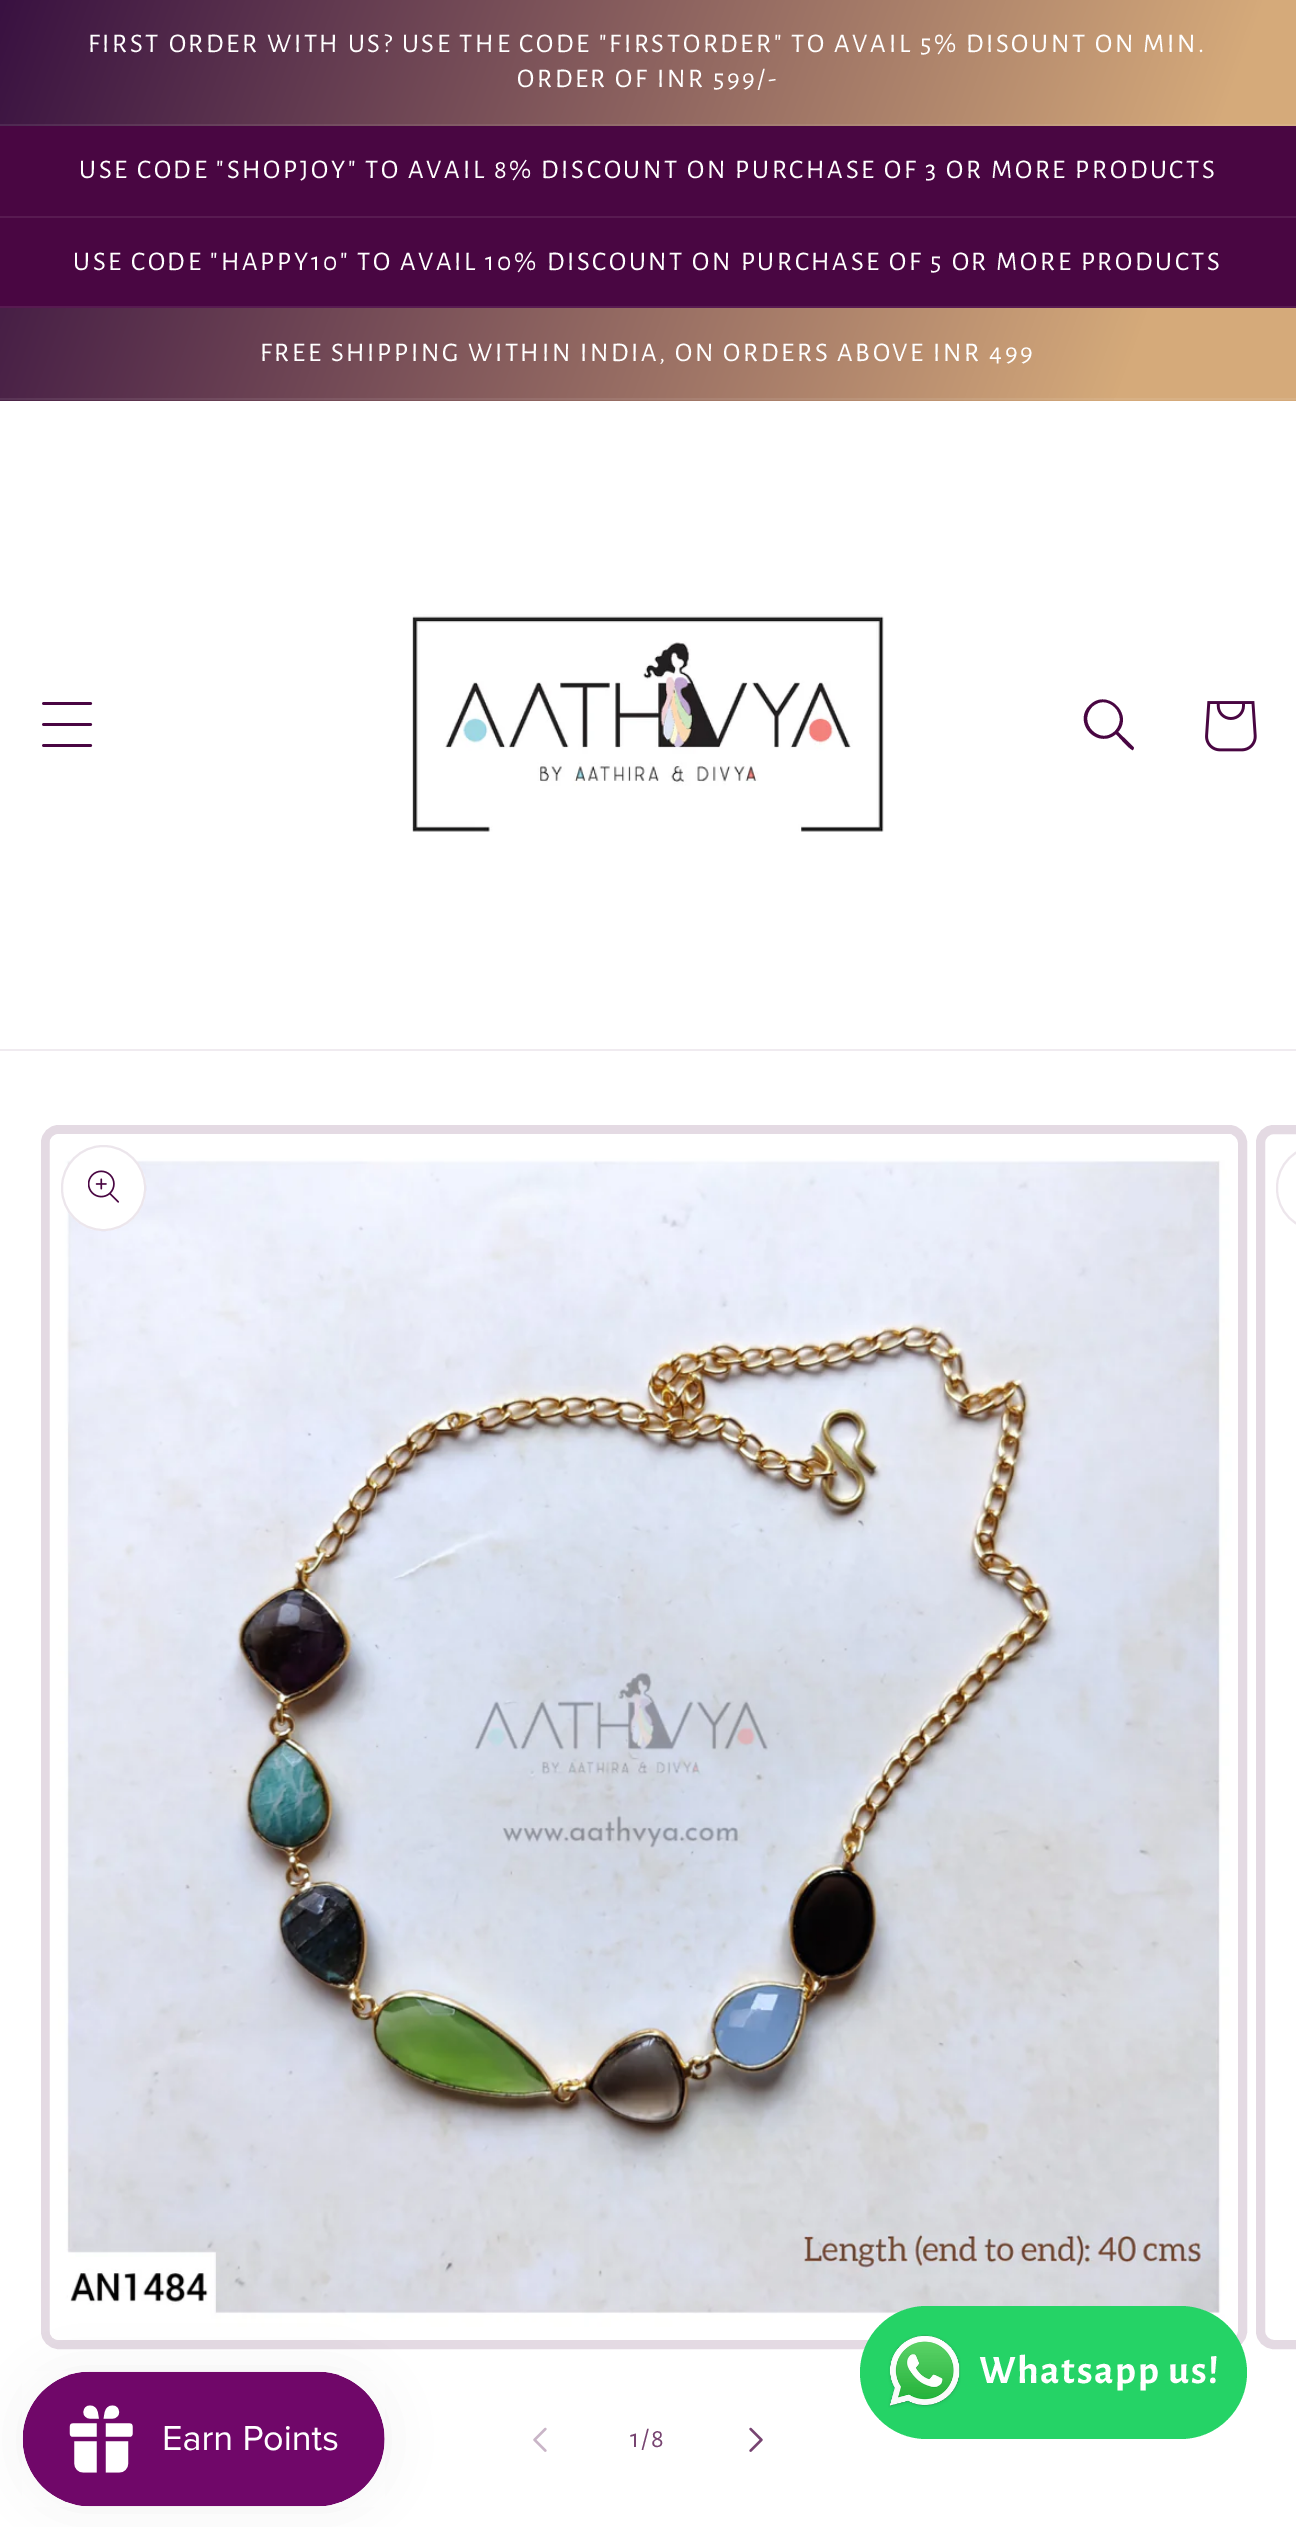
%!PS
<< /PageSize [1296 2527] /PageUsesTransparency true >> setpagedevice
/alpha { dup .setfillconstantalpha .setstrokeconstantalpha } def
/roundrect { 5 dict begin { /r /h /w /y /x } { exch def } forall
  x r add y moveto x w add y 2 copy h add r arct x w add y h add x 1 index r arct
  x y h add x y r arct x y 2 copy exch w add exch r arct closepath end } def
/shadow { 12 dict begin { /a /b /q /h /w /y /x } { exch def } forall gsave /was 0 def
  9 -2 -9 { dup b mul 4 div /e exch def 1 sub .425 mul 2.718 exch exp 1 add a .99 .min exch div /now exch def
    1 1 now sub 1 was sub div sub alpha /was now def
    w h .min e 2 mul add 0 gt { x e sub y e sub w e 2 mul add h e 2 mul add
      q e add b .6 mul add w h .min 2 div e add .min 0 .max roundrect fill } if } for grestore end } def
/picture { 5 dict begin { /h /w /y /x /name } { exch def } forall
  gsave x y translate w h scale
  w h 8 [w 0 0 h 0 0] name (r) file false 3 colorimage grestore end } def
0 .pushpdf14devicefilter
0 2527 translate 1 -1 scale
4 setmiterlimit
1 setgray
0 0 1296 2527 rectfill
gsave newpath 0 0 moveto 1296 0 lineto 1296 124 lineto 0 124 lineto closepath clip newpath
<< /ShadingType 2 /ColorSpace /DeviceRGB /Coords [-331 908 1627 1621] /Extend [true true] /Function << /FunctionType 3 /Domain [0 1] /Functions [<< /FunctionType 2 /Domain [0 1] /C0 [0.224 0.067 0.255] /C1 [0.835 0.667 0.478] /N 1 >> << /FunctionType 2 /Domain [0 1] /C0 [0.835 0.667 0.478] /C1 [0.835 0.667 0.478] /N 1 >>] /Bounds [0.57] /Encode [0 1 0 1] >> >> shfill grestore
gsave newpath 0 124 moveto 1296 124 lineto 1296 126 lineto 0 126 lineto closepath clip newpath
<< /ShadingType 2 /ColorSpace /DeviceRGB /Coords [-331 908 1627 1621] /Extend [true true] /Function << /FunctionType 3 /Domain [0 1] /Functions [<< /FunctionType 2 /Domain [0 1] /C0 [0.286 0.141 0.314] /C1 [0.847 0.694 0.522] /N 1 >> << /FunctionType 2 /Domain [0 1] /C0 [0.847 0.694 0.522] /C1 [0.847 0.694 0.522] /N 1 >>] /Bounds [0.57] /Encode [0 1 0 1] >> >> shfill grestore
/AlegreyaSans-Regular [27 0 0 -27 0 0] selectfont
88 52 moveto 2.7 0 (FIRST ORDER WITH US? USE THE CODE "FIRSTORDER" TO AVAIL 5% DISOUNT ON MIN.) ashow
517 87 moveto 2.7 0 (ORDER OF INR 599/-) ashow
0.286 0.024 0.259 setrgbcolor
0 126 1296 90 rectfill
0.345 0.102 0.318 setrgbcolor
0 216 1296 2 rectfill
1 setgray
79 178 moveto 2.7 0 (USE CODE "SHOPJOY" TO AVAIL 8% DISCOUNT ON PURCHASE OF 3 OR MORE PRODUCTS) ashow
0.286 0.024 0.259 setrgbcolor
0 218 1296 88 rectfill
0.345 0.102 0.318 setrgbcolor
0 306 1296 2 rectfill
1 setgray
73 270 moveto 2.7 0 (USE CODE "HAPPY10" TO AVAIL 10% DISCOUNT ON PURCHASE OF 5 OR MORE PRODUCTS) ashow
gsave newpath 0 308 moveto 1296 308 lineto 1296 401 lineto 0 401 lineto closepath clip newpath
<< /ShadingType 2 /ColorSpace /DeviceRGB /Coords [-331 908 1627 1621] /Extend [true true] /Function << /FunctionType 3 /Domain [0 1] /Functions [<< /FunctionType 2 /Domain [0 1] /C0 [0.224 0.067 0.255] /C1 [0.835 0.667 0.478] /N 1 >> << /FunctionType 2 /Domain [0 1] /C0 [0.835 0.667 0.478] /C1 [0.835 0.667 0.478] /N 1 >>] /Bounds [0.57] /Encode [0 1 0 1] >> >> shfill grestore
gsave newpath 0 398 moveto 1296 398 lineto 1296 400 lineto 0 400 lineto closepath clip newpath
<< /ShadingType 2 /ColorSpace /DeviceRGB /Coords [-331 908 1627 1621] /Extend [true true] /Function << /FunctionType 3 /Domain [0 1] /Functions [<< /FunctionType 2 /Domain [0 1] /C0 [0.286 0.141 0.314] /C1 [0.847 0.694 0.522] /N 1 >> << /FunctionType 2 /Domain [0 1] /C0 [0.847 0.694 0.522] /C1 [0.847 0.694 0.522] /N 1 >>] /Bounds [0.57] /Encode [0 1 0 1] >> >> shfill grestore
260 361 moveto 2.7 0 (FREE SHIPPING WITHIN INDIA, ON ORDERS ABOVE INR 499) ashow
0.941 0.922 0.941 setrgbcolor
0 1049 1296 2 rectfill
(img1.rgb) 42 702 51 45 picture
(img2.rgb) 412 614 472 218 picture
0.286 0.024 0.259 setrgbcolor
newpath 1115 731 moveto 1100 746 1077 723 1092 707 curveto 1107 692 1130 715 1115 731 curveto closepath 1116 734 moveto 1097 750 1072 722 1090 705 curveto 1107 688 1134 714 1118 732 curveto 1120 734 1134 747 1134 748 curveto 1133 750 lineto 1131 751 1118 736 1116 734 curveto closepath eofill
(img3.rgb) 1205 701 52 51 picture
0.894 0.855 0.89 setrgbcolor
9 setlinewidth
45.5 1129.5 1197 1215 13.5 roundrect stroke
(img6.rgb) 49 1134 1183 1206 picture
0 setgray
23 2372 362 135 67.5 28 0.05 shadow
(img4.rgb) 22 2371 363 136 picture
0.145 0.827 0.4 setrgbcolor
860 2306 387 133 66.5 roundrect fill
(img5.rgb) 888 2334 73 74 picture
/AlegreyaSans-Bold [40.5 0 0 -40.5 0 0] selectfont
1 setgray
979 2383 moveto 1.6 0 (Whatsapp us!) ashow
61 1145 85 86 42.5 roundrect fill
0.1 alpha
0.286 0.024 0.259 setrgbcolor
2 setlinewidth
62 1146 83 84 41.5 roundrect stroke
1 alpha
(img7.rgb) 88 1170 31 33 picture
0.894 0.855 0.89 setrgbcolor
9 setlinewidth
1260.5 1129.5 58 1215 13.5 roundrect stroke
0.929 0.902 0.925 setrgbcolor
2 setlinewidth
1277 1146 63 84 41.5 roundrect stroke
(img8.rgb) 533 2427 14 25 picture
/AlegreyaSans-Regular [27 0 0 -27 0 0] selectfont
0.467 0.267 0.443 setrgbcolor
630 2447 moveto 2 0 (1/8) ashow
(img9.rgb) 749 2427 14 25 picture
.poppdf14devicefilter showpage
